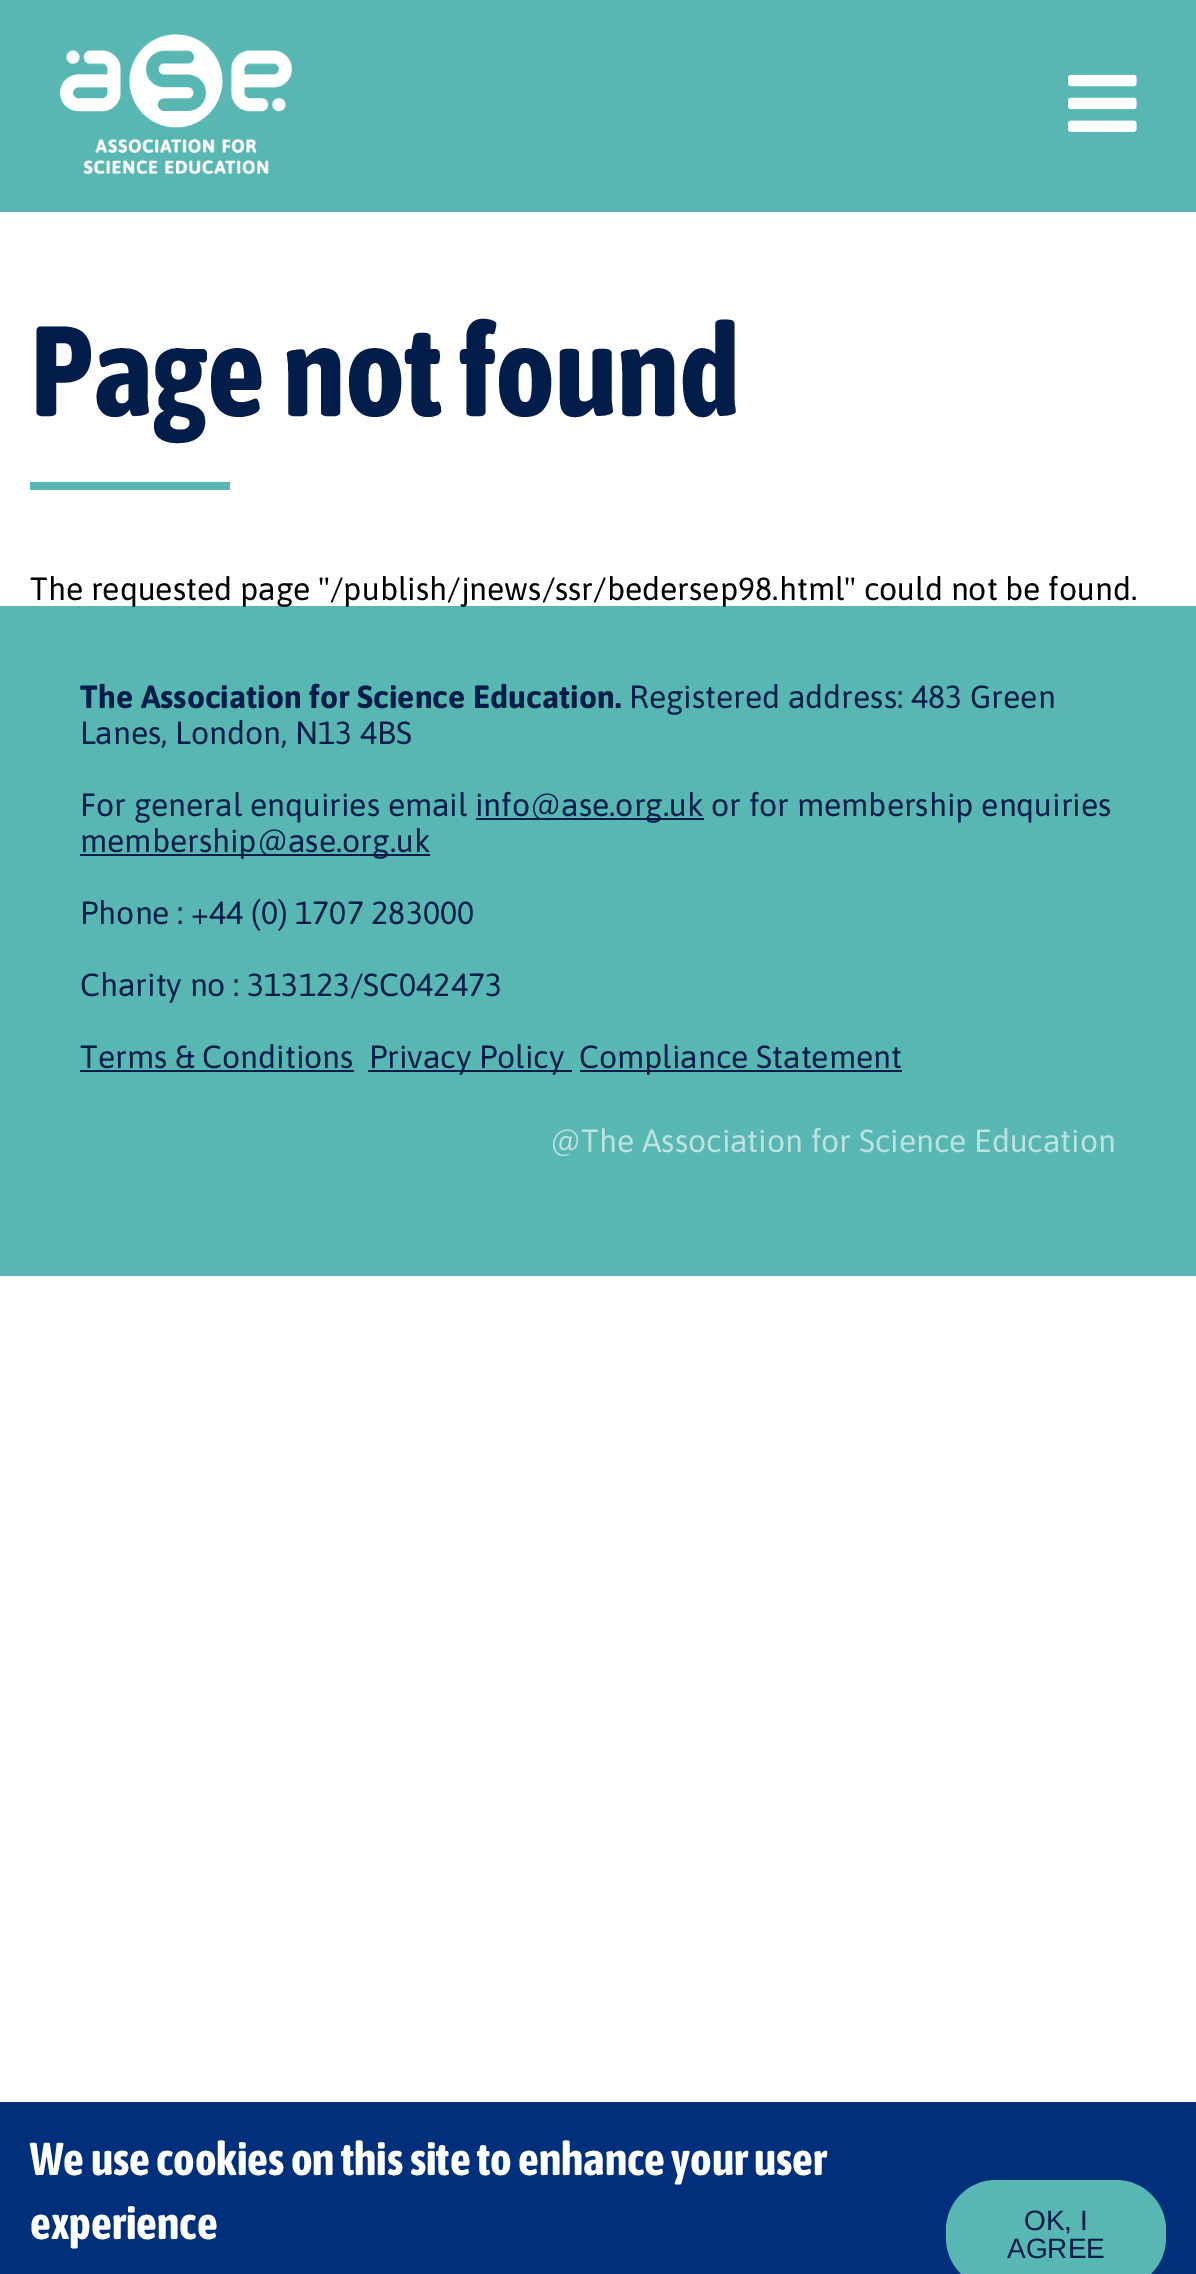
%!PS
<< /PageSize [1196 2274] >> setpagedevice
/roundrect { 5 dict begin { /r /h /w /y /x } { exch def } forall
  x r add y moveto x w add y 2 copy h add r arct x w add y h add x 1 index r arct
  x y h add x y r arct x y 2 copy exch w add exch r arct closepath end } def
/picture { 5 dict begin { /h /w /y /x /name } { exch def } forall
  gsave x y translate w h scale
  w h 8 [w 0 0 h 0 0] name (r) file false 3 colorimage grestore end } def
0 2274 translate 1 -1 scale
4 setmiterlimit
1 setgray
0 0 1196 2274 rectfill
0.345 0.718 0.702 setrgbcolor
0 0 1196 212 rectfill
(img1.rgb) 60 34 232 140 picture
(img2.rgb) 1068 74 69 58 picture
/AsapCondensed-Bold [128 0 0 -128 0 0] selectfont
0.008 0.114 0.286 setrgbcolor
30 416 moveto (Page not found) show
0.345 0.718 0.702 setrgbcolor
30 482 200 8 rectfill
0 606 1196 670 rectfill
/Asap-Regular [32 0 0 -32 0 0] selectfont
0 setgray
30 600 moveto (The requested page "/publish/jnews/ssr/bedersep98.html" could not be found.) show
/Asap-Bold [32 0 0 -32 0 0] selectfont
0.008 0.114 0.286 setrgbcolor
80 708 moveto (The Association for Science Education.) show
/Asap-Regular [32 0 0 -32 0 0] selectfont
629 708 moveto (Registered address: 483 Green) show
80 744 moveto (Lanes, London, N13 4BS) show
80 816 moveto (For general enquiries email) show
476 818 228 2 rectfill
475 816 moveto (info@ase.org.uk or for membership enquiries) show
80 854 350 2 rectfill
80 852 moveto (membership@ase.org.uk) show
80 924 moveto (Phone : +44 \(0\) 1707 283000) show
80 996 moveto (Charity no : 313123/SC042473) show
80 1068 moveto (Terms & Conditions) show
80 1070 274 2 rectfill
368 1070 204 2 rectfill
369 1068 moveto (Privacy Policy) show
580 1070 322 2 rectfill
579 1068 moveto (Compliance Statement) show
0.737 0.886 0.882 setrgbcolor
550 1152 moveto (@The Association for Science Education) show
0 0.188 0.486 setrgbcolor
0 2102 1196 172 rectfill
/AsapCondensed-Bold [46 0 0 -46 0 0] selectfont
1 setgray
30 2175 moveto (We use cookies on this site to enhance your user) show
30 2239 moveto (experience) show
0.345 0.718 0.702 setrgbcolor
946 2180 220 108 50 roundrect fill
/LiberationSans-Regular [28 0 0 -28 0 0] selectfont
0.008 0.114 0.286 setrgbcolor
1024 2230 moveto (OK, I) show
1007 2258 moveto (AGREE) show
showpage
